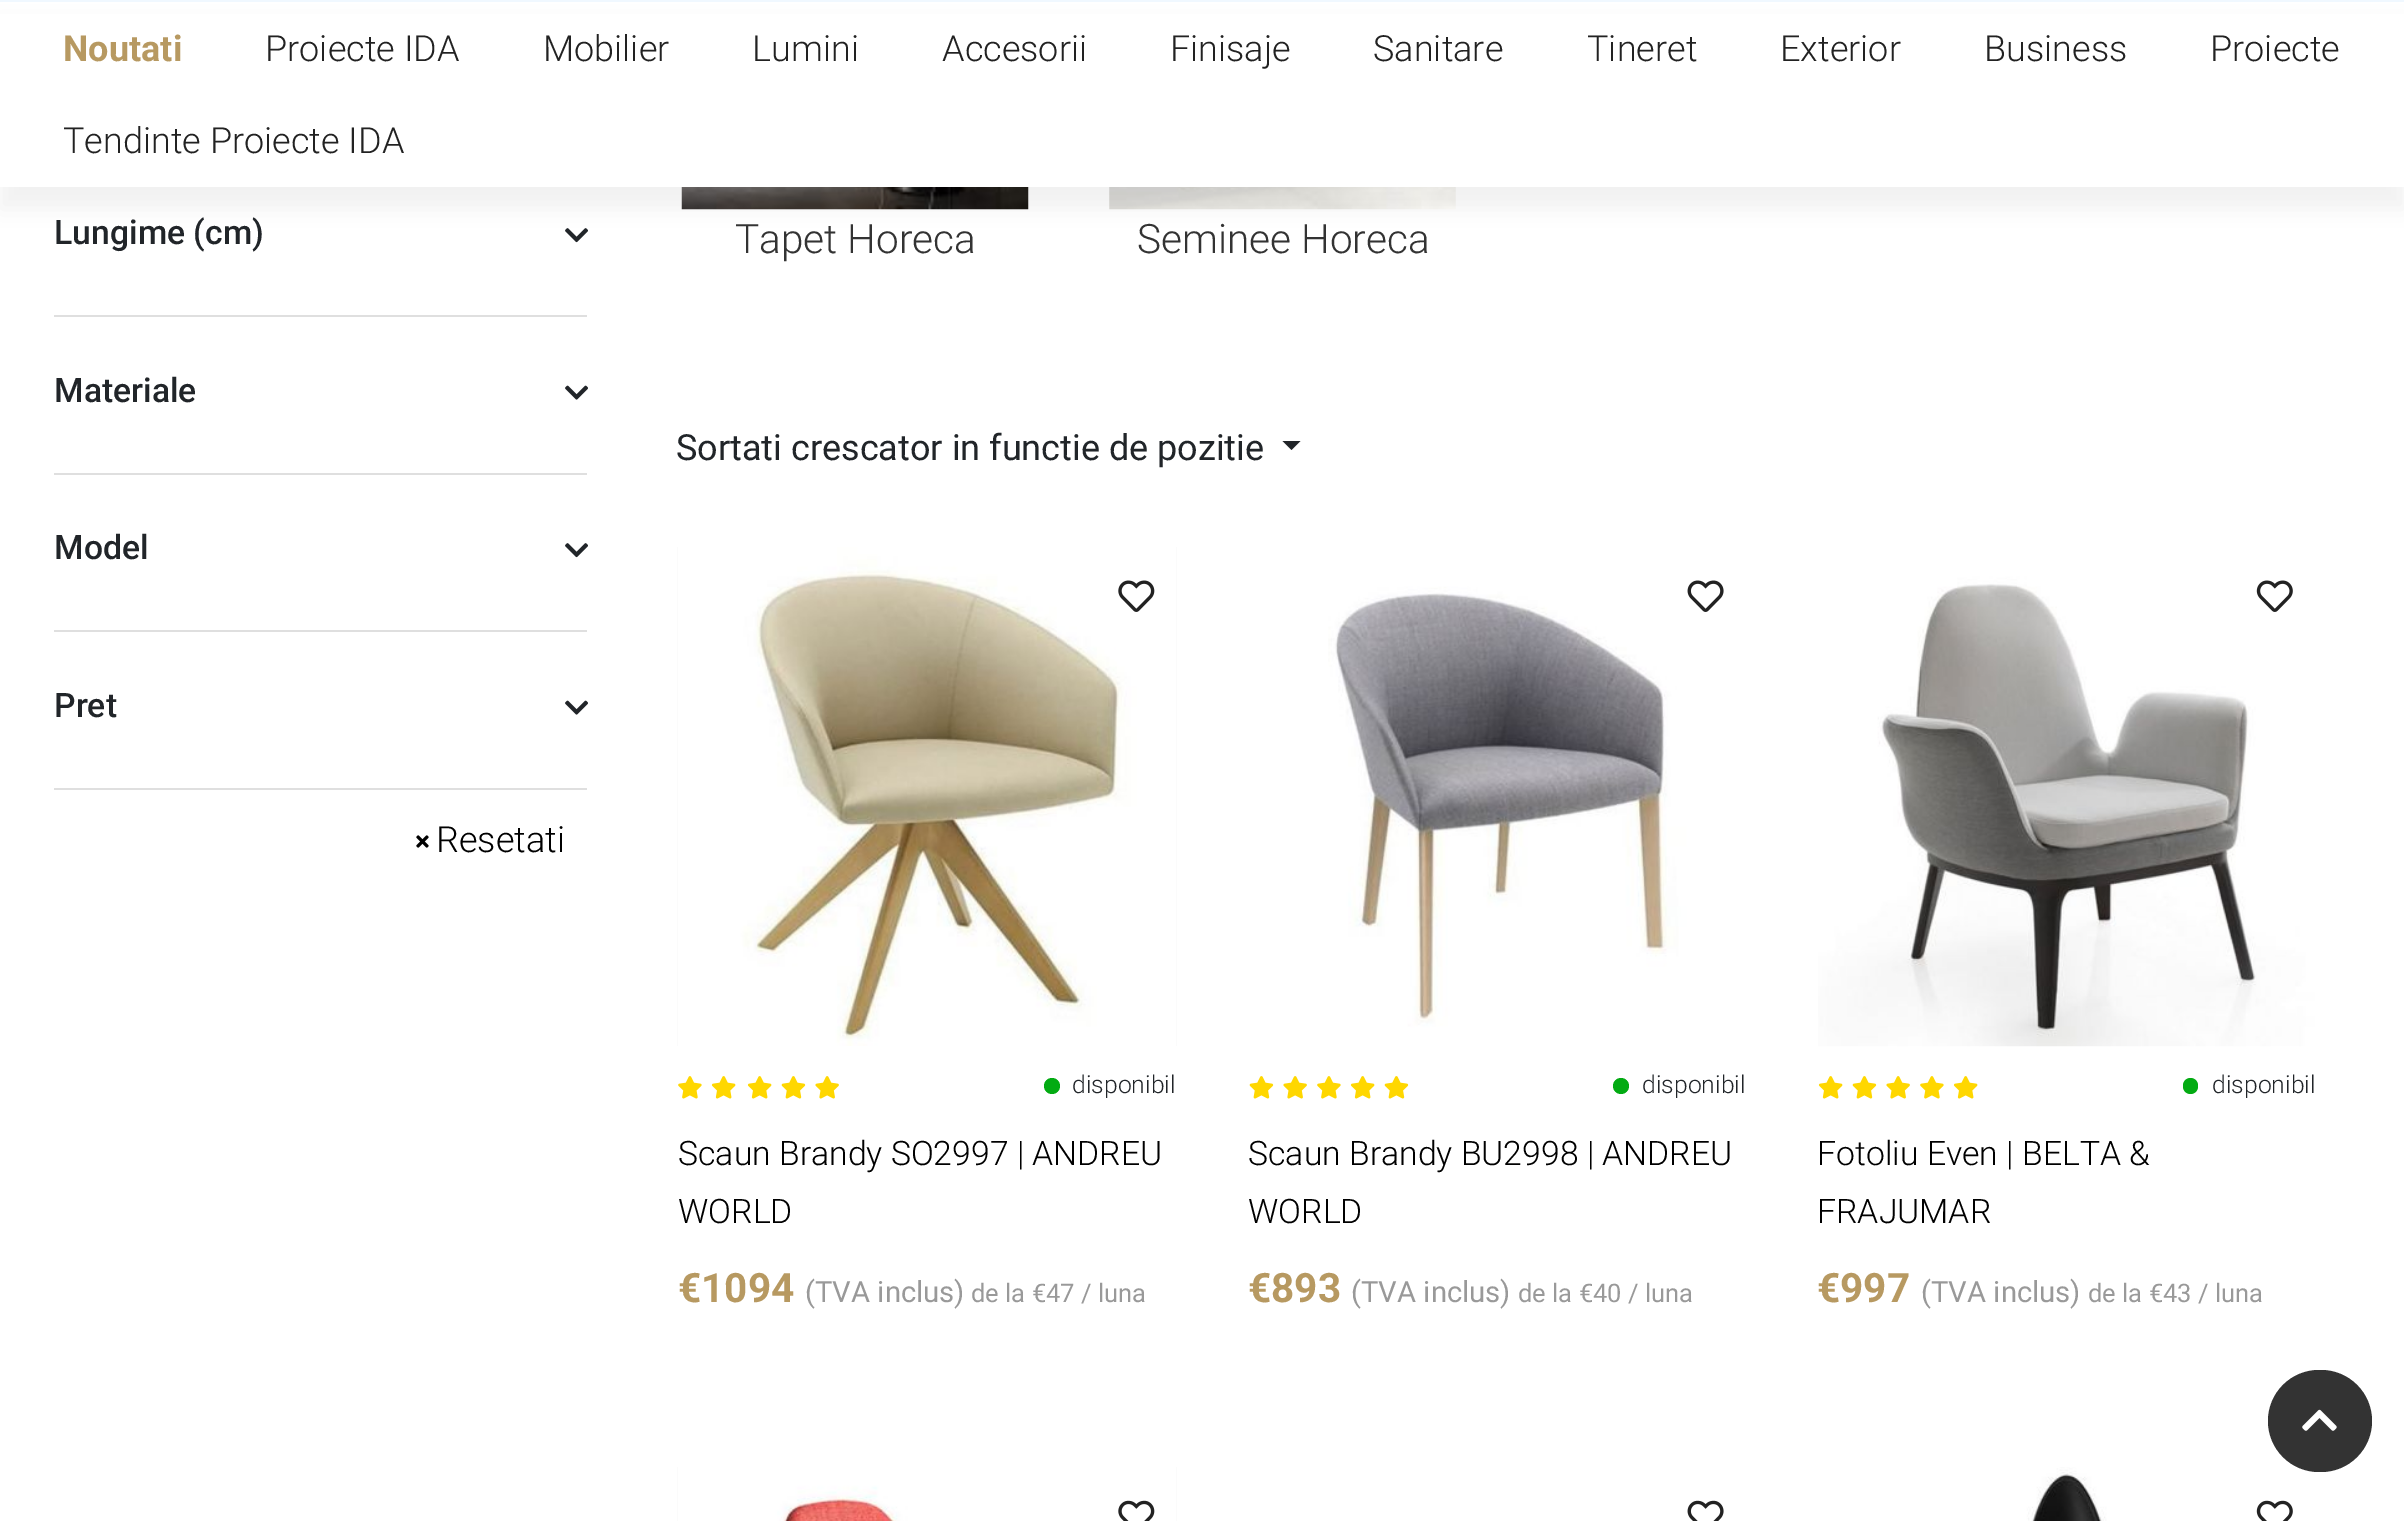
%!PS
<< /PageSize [2404 1521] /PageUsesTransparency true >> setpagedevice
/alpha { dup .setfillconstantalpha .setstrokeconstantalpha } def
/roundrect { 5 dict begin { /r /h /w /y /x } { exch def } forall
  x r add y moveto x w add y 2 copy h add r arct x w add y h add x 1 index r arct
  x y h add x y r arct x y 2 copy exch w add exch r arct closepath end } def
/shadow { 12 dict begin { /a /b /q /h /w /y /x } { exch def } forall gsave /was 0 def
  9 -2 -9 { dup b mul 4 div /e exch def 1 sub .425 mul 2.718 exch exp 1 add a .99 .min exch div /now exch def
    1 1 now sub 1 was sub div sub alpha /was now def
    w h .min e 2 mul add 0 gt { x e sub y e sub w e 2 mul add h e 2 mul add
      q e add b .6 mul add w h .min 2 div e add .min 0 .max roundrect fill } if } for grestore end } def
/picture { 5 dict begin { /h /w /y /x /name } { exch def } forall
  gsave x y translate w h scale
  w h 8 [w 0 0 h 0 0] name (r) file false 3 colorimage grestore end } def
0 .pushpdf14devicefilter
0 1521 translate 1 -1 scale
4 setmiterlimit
1 setgray
0 0 2404 1521 rectfill
(img1.rgb) 565 228 23 15 picture
(img4.rgb) 681 187 348 23 picture
(img5.rgb) 1109 187 347 23 picture
0 setgray
0 23 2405 186 0 11 0.05 shadow
1 setgray
0 14 2404 173 rectfill
0.941 0.973 1 setrgbcolor
0 0 2404 2 rectfill
/Roboto-Bold [36 0 0 -36 0 0] selectfont
0.718 0.6 0.38 setrgbcolor
63 61 moveto (Noutati) show
/Roboto-Light [36 0 0 -36 0 0] selectfont
0.133 setgray
265 61 moveto (Proiecte IDA) show
543 61 moveto (Mobilier) show
752 61 moveto (Lumini) show
942 61 moveto (Accesorii) show
1170 61 moveto (Finisaje) show
1373 61 moveto (Sanitare) show
1587 61 moveto (Tineret) show
1780 61 moveto (Exterior) show
1984 61 moveto (Business) show
2210 61 moveto (Proiecte) show
63 153 moveto (Tendinte Proiecte IDA) show
0.875 setgray
54 315 533 2 rectfill
/Roboto-Medium [33.75 0 0 -33.75 0 0] selectfont
0.129 0.145 0.161 setrgbcolor
54 244 moveto (Lungime \(cm\)) show
0.875 setgray
54 473 533 2 rectfill
0.129 0.145 0.161 setrgbcolor
54 402 moveto (Materiale) show
(img2.rgb) 565 385 23 15 picture
0.875 setgray
54 630 533 2 rectfill
0.129 0.145 0.161 setrgbcolor
54 559 moveto (Model) show
(img1.rgb) 565 543 23 15 picture
0.875 setgray
54 788 533 2 rectfill
0.129 0.145 0.161 setrgbcolor
54 717 moveto (Pret) show
(img2.rgb) 565 700 23 15 picture
(img3.rgb) 416 835 13 13 picture
/Roboto-Light [36 0 0 -36 0 0] selectfont
0 setgray
436 852 moveto (Resetati) show
/Roboto-Light [40.5 0 0 -40.5 0 0] selectfont
0.2 setgray
735 253 moveto (Tapet Horeca) show
1137 253 moveto (Seminee Horeca) show
/Roboto-Regular [36 0 0 -36 0 0] selectfont
0.129 0.145 0.161 setrgbcolor
676 460 moveto (Sortati crescator in functie de pozitie) show
newpath 1282.5 441 moveto 1300.5 441 lineto 1291.5 450 lineto closepath fill
(img6.rgb) 677 547 500 499 picture
(img7.rgb) 1118 580 37 32 picture
(img8.rgb) 678 1076 24 23 picture
(img9.rgb) 711 1076 25 23 picture
(img9.rgb) 747 1076 25 23 picture
(img10.rgb) 781 1076 25 23 picture
(img11.rgb) 815 1076 24 23 picture
0.012 0.671 0.075 setrgbcolor
newpath 1052 1086 8 0 360 arc closepath fill
/Roboto-Light [24.75 0 0 -24.75 0 0] selectfont
0.129 0.145 0.161 setrgbcolor
1072 1093 moveto (disponibil) show
/Roboto-Light [33.75 0 0 -33.75 0 0] selectfont
0 setgray
678 1165 moveto (Scaun Brandy SO2997 | ANDREU) show
678 1223 moveto (WORLD) show
/Roboto-Bold [40.5 0 0 -40.5 0 0] selectfont
0.718 0.6 0.38 setrgbcolor
678 1302 moveto (€1094) show
/Roboto-Regular [29.25 0 0 -29.25 0 0] selectfont
0.6 setgray
805 1302 moveto (\(TVA inclus\)) show
/Roboto-Regular [25.5 0 0 -25.5 0 0] selectfont
971 1302 moveto (de la €47 / luna) show
(img12.rgb) 1249 547 497 499 picture
(img13.rgb) 1687 580 37 32 picture
(img10.rgb) 1249 1076 25 23 picture
(img11.rgb) 1283 1076 24 23 picture
(img8.rgb) 1317 1076 24 23 picture
(img9.rgb) 1350 1076 25 23 picture
(img10.rgb) 1384 1076 25 23 picture
0.012 0.671 0.075 setrgbcolor
newpath 1621 1086 8 0 360 arc closepath fill
/Roboto-Light [24.75 0 0 -24.75 0 0] selectfont
0.129 0.145 0.161 setrgbcolor
1642 1093 moveto (disponibil) show
/Roboto-Light [33.75 0 0 -33.75 0 0] selectfont
0 setgray
1248 1165 moveto (Scaun Brandy BU2998 | ANDREU) show
1248 1223 moveto (WORLD) show
/Roboto-Bold [40.5 0 0 -40.5 0 0] selectfont
0.718 0.6 0.38 setrgbcolor
1248 1302 moveto (€893) show
/Roboto-Regular [29.25 0 0 -29.25 0 0] selectfont
0.6 setgray
1351 1302 moveto (\(TVA inclus\)) show
/Roboto-Regular [25.5 0 0 -25.5 0 0] selectfont
1518 1302 moveto (de la €40 / luna) show
(img14.rgb) 1818 547 497 500 picture
(img15.rgb) 2256 580 37 32 picture
(img9.rgb) 1818 1076 25 23 picture
(img10.rgb) 1852 1076 25 23 picture
(img11.rgb) 1886 1076 24 23 picture
(img8.rgb) 1920 1076 24 23 picture
(img9.rgb) 1953 1076 25 23 picture
0.012 0.671 0.075 setrgbcolor
2183 1078 15 16 7.5 roundrect fill
/Roboto-Light [24.75 0 0 -24.75 0 0] selectfont
0.129 0.145 0.161 setrgbcolor
2212 1093 moveto (disponibil) show
/Roboto-Light [33.75 0 0 -33.75 0 0] selectfont
0 setgray
1817 1165 moveto (Fotoliu Even | BELTA &) show
1817 1223 moveto (FRAJUMAR) show
/Roboto-Bold [40.5 0 0 -40.5 0 0] selectfont
0.718 0.6 0.38 setrgbcolor
1817 1302 moveto (€997) show
/Roboto-Regular [29.25 0 0 -29.25 0 0] selectfont
0.6 setgray
1921 1302 moveto (\(TVA inclus\)) show
/Roboto-Regular [25.5 0 0 -25.5 0 0] selectfont
2088 1302 moveto (de la €43 / luna) show
(img16.rgb) 677 1467 500 54 picture
(img17.rgb) 1118 1500 37 21 picture
(img18.rgb) 1687 1500 37 21 picture
(img19.rgb) 1818 1467 497 54 picture
(img20.rgb) 2256 1500 37 21 picture
0.2 setgray
2268 1370 104 102 51 roundrect fill
(img21.rgb) 2302 1409 35 22 picture
.poppdf14devicefilter showpage
